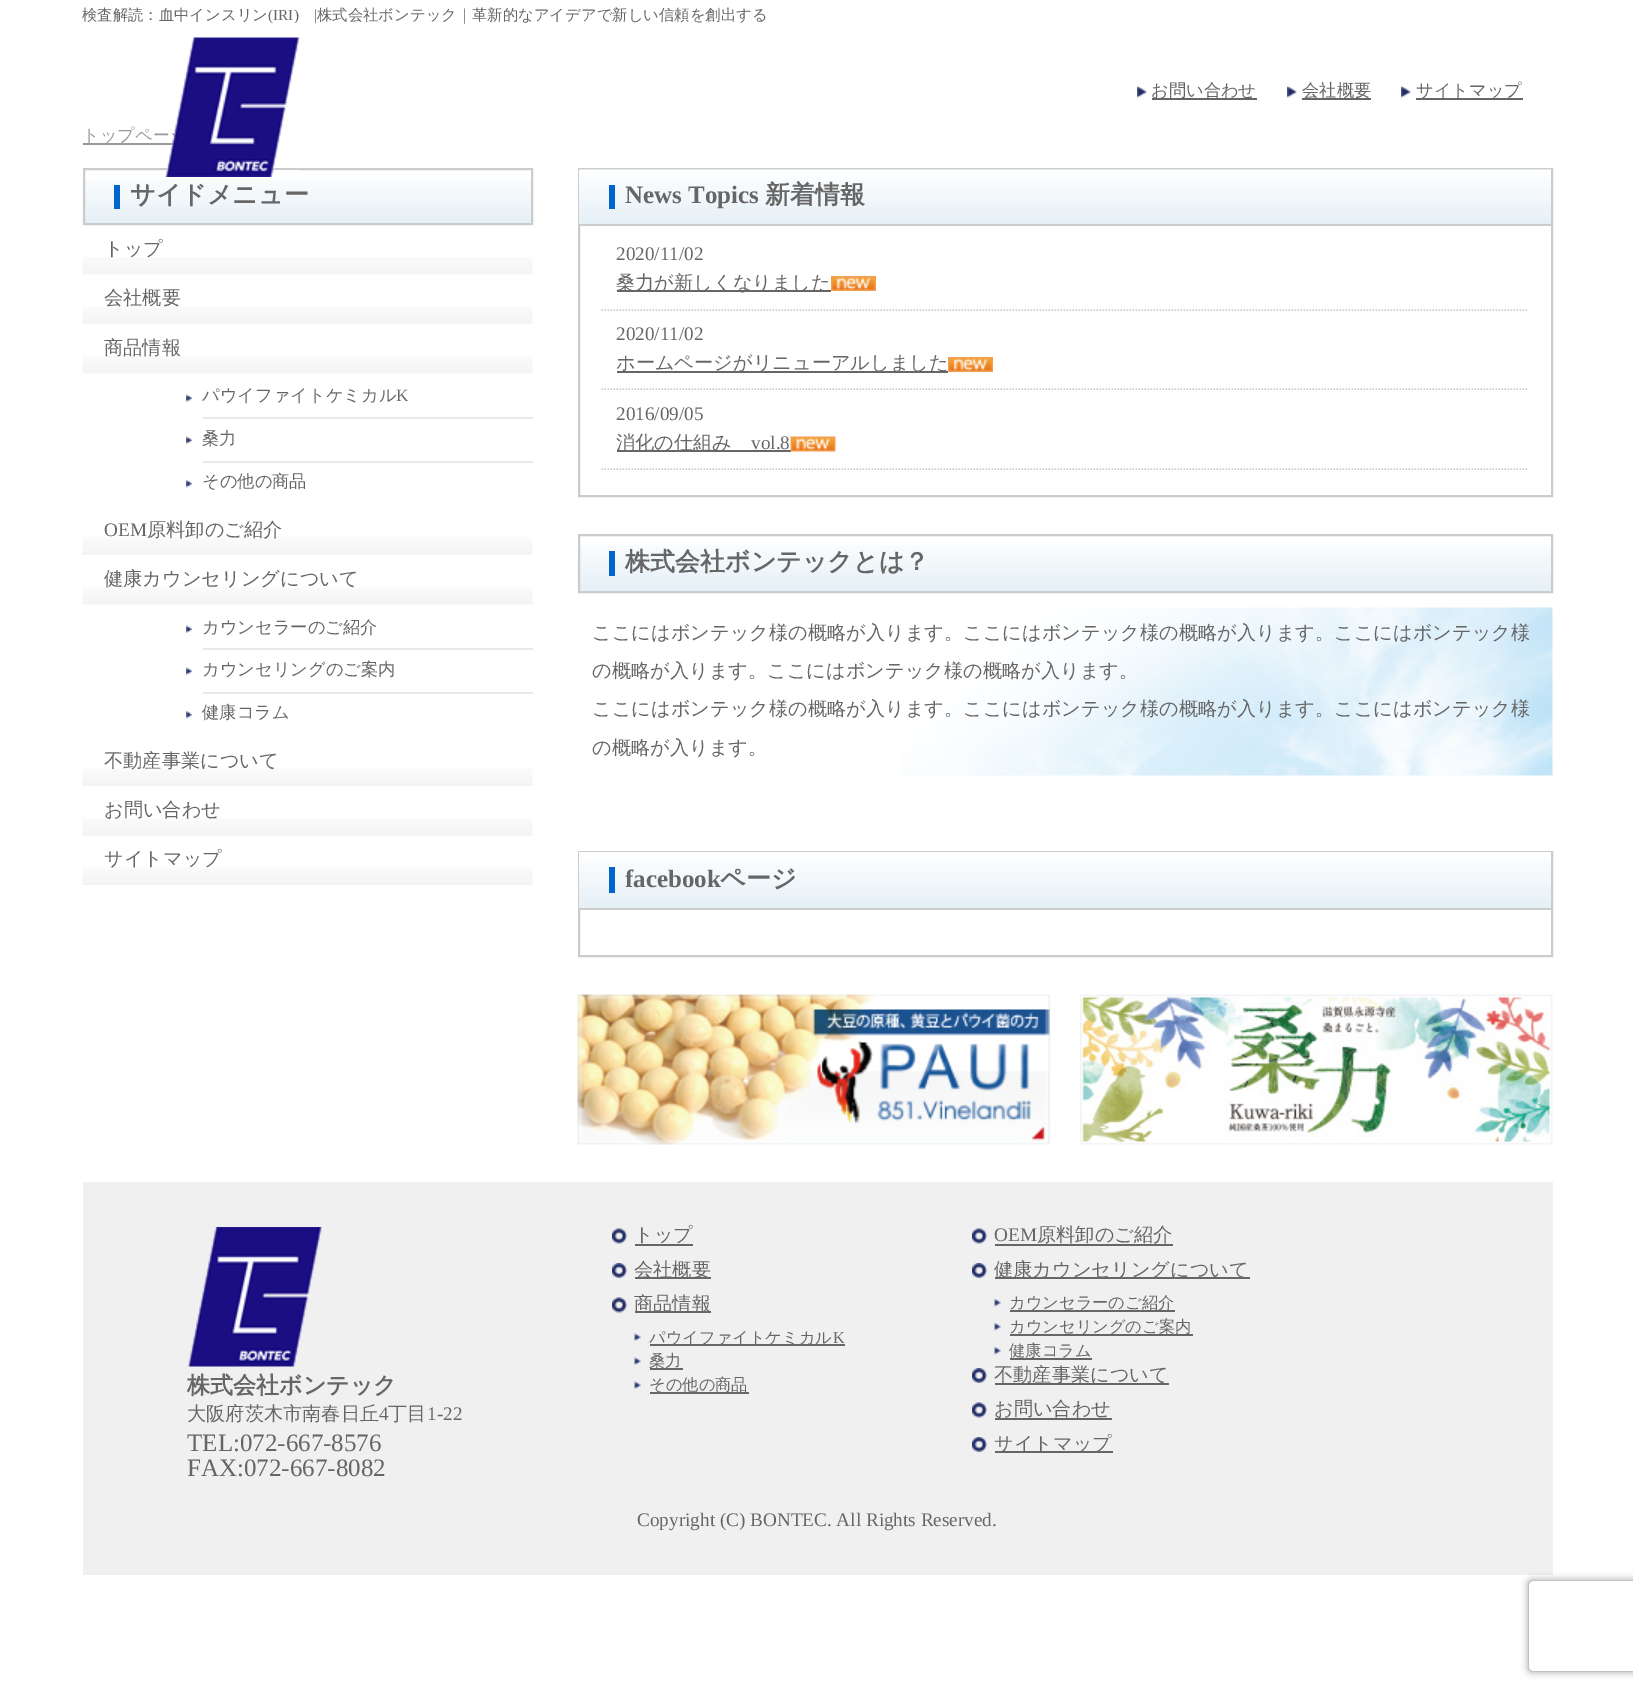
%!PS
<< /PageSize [1633 1691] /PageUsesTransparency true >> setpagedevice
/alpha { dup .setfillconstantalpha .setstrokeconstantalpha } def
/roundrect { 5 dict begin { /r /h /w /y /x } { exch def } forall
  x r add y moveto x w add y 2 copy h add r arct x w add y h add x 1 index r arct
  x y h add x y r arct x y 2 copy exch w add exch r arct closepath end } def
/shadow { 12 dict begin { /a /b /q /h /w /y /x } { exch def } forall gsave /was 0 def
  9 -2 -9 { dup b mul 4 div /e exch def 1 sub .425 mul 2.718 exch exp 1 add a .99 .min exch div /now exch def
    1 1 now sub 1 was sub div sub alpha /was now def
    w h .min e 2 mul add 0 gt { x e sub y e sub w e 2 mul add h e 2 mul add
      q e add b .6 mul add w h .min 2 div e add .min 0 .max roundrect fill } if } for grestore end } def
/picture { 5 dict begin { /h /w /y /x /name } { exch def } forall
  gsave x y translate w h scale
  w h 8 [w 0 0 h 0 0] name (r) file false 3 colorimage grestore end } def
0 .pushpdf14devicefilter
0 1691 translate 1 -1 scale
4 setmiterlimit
1 setgray
0 0 1633 1691 rectfill
/WenQuanYiZenHei-Medium [15.35 0 0 -15.35 0 0] selectfont
0.4 setgray
82 20 moveto (検査解読：血中インスリン) show
/LiberationSerif-Regular [15.35 0 0 -15.35 0 0] selectfont
268 20 moveto (\(IRI\)) show
314 20 moveto (|) show
/WenQuanYiZenHei-Medium [15.35 0 0 -15.35 0 0] selectfont
317 20 moveto (株式会社ボンテック｜革新的なアイデアで新しい信頼を創出する) show
0.6 setgray
83 143 92 2 rectfill
/WenQuanYiZenHei-Medium [17.25 0 0 -17.25 0 0] selectfont
82 141 moveto (トップペー) show
(img4.rgb) 82 179 449 46 picture
0.8 setgray
2 setlinewidth
84 169 448 55 rectstroke
(img1.rgb) 165 37 135 140 picture
(img2.rgb) 1137 85 11 13 picture
0.4 setgray
1152 98 105 2 rectfill
1151 96 moveto (お問い合わせ) show
(img2.rgb) 1287 85 11 13 picture
1302 98 69 2 rectfill
1302 96 moveto (会社概要) show
(img3.rgb) 1401 85 11 13 picture
1416 98 107 2 rectfill
1416 96 moveto (サイトマップ) show
0 0.4 0.8 setrgbcolor
114 185 6 24 rectfill
/WenQuanYiZenHei-Bold [25 0 0 -25 0 0] selectfont
0.4 setgray
130 203 moveto (サイドメニュー) show
(img5.rgb) 82 257 451 18 picture
/WenQuanYiZenHei-Medium [19.2 0 0 -19.2 0 0] selectfont
104 255 moveto (トップ) show
(img6.rgb) 82 306 451 18 picture
104 304 moveto (会社概要) show
(img5.rgb) 82 356 451 18 picture
104 354 moveto (商品情報) show
0.91 setgray
203 417 330 2 rectfill
(img7.rgb) 186 394 6 8 picture
/WenQuanYiZenHei-Medium [17.25 0 0 -17.25 0 0] selectfont
0.4 setgray
202 401 moveto (パウイファイトケミカル) show
/LiberationSerif-Regular [17.25 0 0 -17.25 0 0] selectfont
396 401 moveto (K) show
0.91 setgray
203 461 330 2 rectfill
(img7.rgb) 186 436 6 8 picture
/WenQuanYiZenHei-Medium [17.25 0 0 -17.25 0 0] selectfont
0.4 setgray
202 444 moveto (桑力) show
(img8.rgb) 186 480 6 8 picture
202 487 moveto (その他の商品) show
(img6.rgb) 82 537 451 18 picture
/LiberationSerif-Regular [19.2 0 0 -19.2 0 0] selectfont
104 536 moveto (OEM) show
/WenQuanYiZenHei-Medium [19.2 0 0 -19.2 0 0] selectfont
147 536 moveto (原料卸のご紹介) show
(img5.rgb) 82 587 451 18 picture
104 585 moveto (健康カウンセリングについて) show
0.91 setgray
203 648 330 2 rectfill
(img7.rgb) 186 625 6 8 picture
/WenQuanYiZenHei-Medium [17.25 0 0 -17.25 0 0] selectfont
0.4 setgray
202 633 moveto (カウンセラーのご紹介) show
0.91 setgray
203 692 330 2 rectfill
(img7.rgb) 186 667 6 8 picture
0.4 setgray
202 675 moveto (カウンセリングのご案内) show
(img8.rgb) 186 711 6 8 picture
202 718 moveto (健康コラム) show
(img6.rgb) 82 768 451 18 picture
/WenQuanYiZenHei-Medium [19.2 0 0 -19.2 0 0] selectfont
104 767 moveto (不動産事業について) show
(img5.rgb) 82 818 451 18 picture
104 816 moveto (お問い合わせ) show
(img6.rgb) 82 867 451 18 picture
104 865 moveto (サイトマップ) show
0.8 setgray
579 169 973 327 rectstroke
(img9.rgb) 579 169 972 55 picture
579 224 972 2 rectfill
0 0.4 0.8 setrgbcolor
609 185 6 24 rectfill
/LiberationSerif-Bold [25 0 0 -25 0 0] selectfont
0.4 setgray
625 203 moveto (News Topics) show
/WenQuanYiZenHei-Bold [25 0 0 -25 0 0] selectfont
765 203 moveto (新着情報) show
0.8 setgray
1.5 setlinewidth
[1.5 1.5] 0 setdash
newpath 601.5 310 moveto 1528.5 310 lineto stroke
/LiberationSerif-Regular [19.2 0 0 -19.2 0 0] selectfont
0.4 setgray
616 260 moveto (2020/11/02) show
617 290 214 2 rectfill
/WenQuanYiZenHei-Medium [19.2 0 0 -19.2 0 0] selectfont
616 289 moveto (桑力が新しくなりました) show
(img10.rgb) 831 276 45 15 picture
0.8 setgray
newpath 601.5 389 moveto 1528.5 389 lineto stroke
/LiberationSerif-Regular [19.2 0 0 -19.2 0 0] selectfont
0.4 setgray
616 340 moveto (2020/11/02) show
617 371 331 2 rectfill
/WenQuanYiZenHei-Medium [19.2 0 0 -19.2 0 0] selectfont
616 369 moveto (ホームページがリニューアルしました) show
(img10.rgb) 948 357 45 15 picture
0.8 setgray
newpath 601.5 469 moveto 1528.5 469 lineto stroke
/LiberationSerif-Regular [19.2 0 0 -19.2 0 0] selectfont
0.4 setgray
616 420 moveto (2016/09/05) show
617 450 174 2 rectfill
/WenQuanYiZenHei-Medium [19.2 0 0 -19.2 0 0] selectfont
616 449 moveto (消化の仕組み) show
/LiberationSerif-Regular [19.2 0 0 -19.2 0 0] selectfont
751 449 moveto (vol.8) show
(img11.rgb) 790 436 46 16 picture
(img12.rgb) 577 545 974 48 picture
0.8 setgray
2 setlinewidth
[] 0 setdash
579 535 973 57 rectstroke
0 0.4 0.8 setrgbcolor
609 551 6 25 rectfill
/WenQuanYiZenHei-Bold [25 0 0 -25 0 0] selectfont
0.4 setgray
625 570 moveto (株式会社ボンテックとは？) show
(img13.rgb) 901 607 652 169 picture
/WenQuanYiZenHei-Medium [19.2 0 0 -19.2 0 0] selectfont
592 639 moveto (ここにはボンテック様の概略が入ります。ここにはボンテック様の概略が入ります。ここにはボンテック様) show
592 677 moveto (の概略が入ります。ここにはボンテック様の概略が入ります。) show
592 715 moveto (ここにはボンテック様の概略が入ります。ここにはボンテック様の概略が入ります。ここにはボンテック様) show
592 754 moveto (の概略が入ります。) show
0.8 setgray
579 852 973 104 rectstroke
(img14.rgb) 579 852 972 56 picture
579 908 972 2 rectfill
0 0.4 0.8 setrgbcolor
609 867 6 26 rectfill
/LiberationSerif-Bold [25 0 0 -25 0 0] selectfont
0.4 setgray
625 887 moveto (facebook) show
/WenQuanYiZenHei-Bold [25 0 0 -25 0 0] selectfont
720 887 moveto (ページ) show
(img15.rgb) 577 994 473 151 picture
(img16.rgb) 1080 994 473 151 picture
0.941 setgray
83 1182 1470 393 rectfill
(img17.rgb) 187 1227 136 140 picture
/WenQuanYiZenHei-Bold [23 0 0 -23 0 0] selectfont
0.4 setgray
187 1393 moveto (株式会社ボンテック) show
/WenQuanYiZenHei-Medium [19.2 0 0 -19.2 0 0] selectfont
187 1420 moveto (大阪府茨木市南春日丘) show
/LiberationSerif-Regular [19.2 0 0 -19.2 0 0] selectfont
379 1420 moveto (4) show
/WenQuanYiZenHei-Medium [19.2 0 0 -19.2 0 0] selectfont
388 1420 moveto (丁目) show
/LiberationSerif-Regular [19.2 0 0 -19.2 0 0] selectfont
427 1420 moveto (1-22) show
/LiberationSerif-Regular [25 0 0 -25 0 0] selectfont
187 1451 moveto (TEL:072-667-8576) show
187 1476 moveto (FAX:072-667-8082) show
(img18.rgb) 612 1228 15 16 picture
/WenQuanYiZenHei-Medium [19.2 0 0 -19.2 0 0] selectfont
634 1241 moveto (トップ) show
635 1244 58 2 rectfill
(img19.rgb) 612 1263 15 15 picture
635 1277 76 2 rectfill
634 1276 moveto (会社概要) show
(img18.rgb) 612 1297 15 16 picture
635 1311 76 2 rectfill
634 1310 moveto (商品情報) show
(img20.rgb) 634 1333 7 8 picture
650 1344 195 2 rectfill
/WenQuanYiZenHei-Medium [16.25 0 0 -16.25 0 0] selectfont
649 1343 moveto (パウイファイトケミカル) show
/LiberationSerif-Regular [16.25 0 0 -16.25 0 0] selectfont
833 1343 moveto (K) show
(img20.rgb) 634 1357 7 8 picture
650 1368 33 2 rectfill
/WenQuanYiZenHei-Medium [16.25 0 0 -16.25 0 0] selectfont
649 1366 moveto (桑力) show
(img20.rgb) 634 1381 7 8 picture
650 1392 99 2 rectfill
649 1390 moveto (その他の商品) show
(img18.rgb) 972 1228 15 16 picture
/LiberationSerif-Regular [19.2 0 0 -19.2 0 0] selectfont
994 1241 moveto (OEM) show
995 1244 178 2 rectfill
/WenQuanYiZenHei-Medium [19.2 0 0 -19.2 0 0] selectfont
1037 1241 moveto (原料卸のご紹介) show
(img19.rgb) 972 1263 15 15 picture
995 1277 255 2 rectfill
994 1276 moveto (健康カウンセリングについて) show
(img21.rgb) 994 1299 7 8 picture
1010 1310 165 2 rectfill
/WenQuanYiZenHei-Medium [16.25 0 0 -16.25 0 0] selectfont
1009 1308 moveto (カウンセラーのご紹介) show
(img21.rgb) 994 1323 7 8 picture
1010 1334 183 2 rectfill
1009 1332 moveto (カウンセリングのご案内) show
(img21.rgb) 994 1347 7 8 picture
1010 1358 82 2 rectfill
1009 1356 moveto (健康コラム) show
(img19.rgb) 972 1368 15 15 picture
995 1383 174 2 rectfill
/WenQuanYiZenHei-Medium [19.2 0 0 -19.2 0 0] selectfont
994 1381 moveto (不動産事業について) show
(img18.rgb) 972 1402 15 16 picture
994 1415 moveto (お問い合わせ) show
995 1418 117 2 rectfill
(img19.rgb) 972 1437 15 15 picture
995 1451 118 2 rectfill
994 1450 moveto (サイトマップ) show
/LiberationSerif-Regular [19.2 0 0 -19.2 0 0] selectfont
637 1526 moveto (Copyright \(C\) BONTEC. All Rights Reserved.) show
gsave
newpath 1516 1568 moveto 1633 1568 lineto 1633 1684 lineto 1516 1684 lineto closepath 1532 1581 moveto 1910 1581 lineto 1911.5 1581 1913 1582.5 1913 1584 curveto 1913 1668 lineto 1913 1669.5 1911.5 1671 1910 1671 curveto 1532 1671 lineto 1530.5 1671 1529 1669.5 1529 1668 curveto 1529 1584 lineto 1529 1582.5 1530.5 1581 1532 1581 curveto closepath eoclip newpath
0.502 setgray
1529 1581 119 90 3 4 1 shadow
grestore
.poppdf14devicefilter showpage
